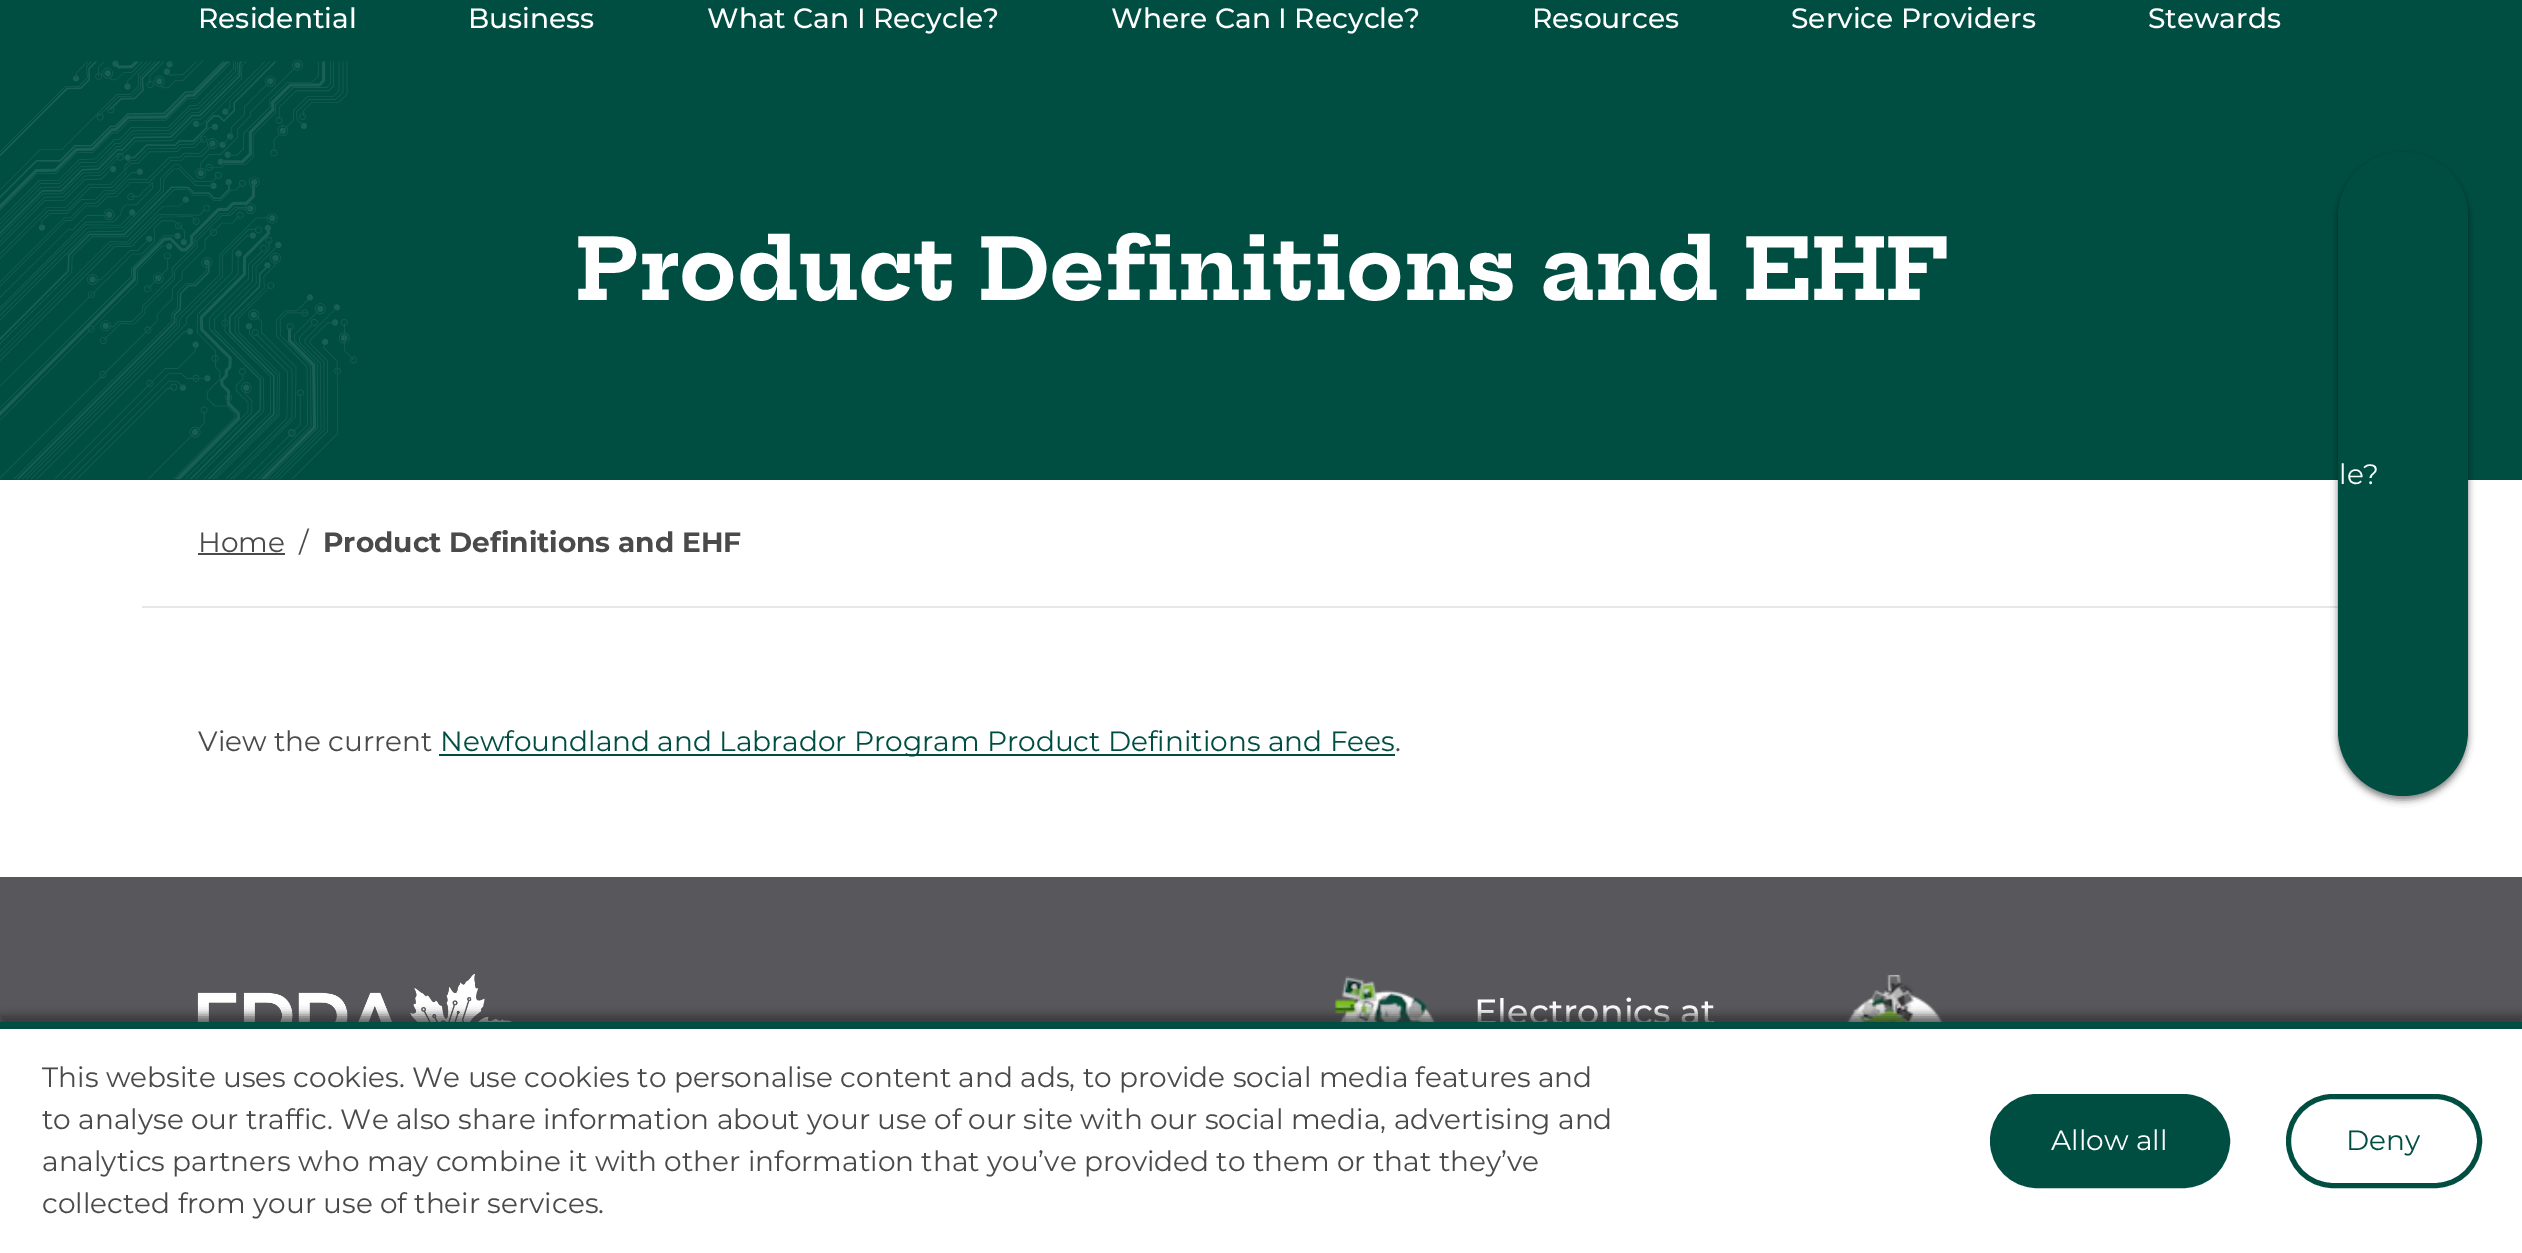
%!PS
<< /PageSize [2522 1253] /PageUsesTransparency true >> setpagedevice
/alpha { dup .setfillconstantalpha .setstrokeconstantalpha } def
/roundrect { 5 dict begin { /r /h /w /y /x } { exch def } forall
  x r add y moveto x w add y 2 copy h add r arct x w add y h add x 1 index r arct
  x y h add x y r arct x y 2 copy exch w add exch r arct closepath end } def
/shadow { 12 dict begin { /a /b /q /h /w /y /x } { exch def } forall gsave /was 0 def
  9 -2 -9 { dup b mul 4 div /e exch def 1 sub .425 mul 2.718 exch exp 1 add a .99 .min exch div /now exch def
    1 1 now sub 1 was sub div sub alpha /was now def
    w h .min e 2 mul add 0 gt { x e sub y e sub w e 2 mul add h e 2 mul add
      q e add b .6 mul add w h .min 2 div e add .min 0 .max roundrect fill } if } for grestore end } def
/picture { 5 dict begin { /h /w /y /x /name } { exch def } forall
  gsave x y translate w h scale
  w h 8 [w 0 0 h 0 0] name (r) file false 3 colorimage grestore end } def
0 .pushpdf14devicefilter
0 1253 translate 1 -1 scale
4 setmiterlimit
1 setgray
0 0 2522 1253 rectfill
0 0.306 0.259 setrgbcolor
0 0 2522 480 rectfill
/Montserrat-Medium [28 0 0 -28 0 0] selectfont
1 setgray
198 28 moveto (Residential) show
468 28 moveto (Business) show
707 28 moveto (What Can I Recycle?) show
1111 28 moveto (Where Can I Recycle?) show
1532 28 moveto (Resources) show
1791 28 moveto (Service Providers) show
2148 28 moveto (Stewards) show
(img1.rgb) 0 60 357 420 picture
/HeptaSlab-Bold [84 0 0 -84 0 0] selectfont
576 300 moveto (Product Definitions and EHF) show
0.898 0.906 0.922 setrgbcolor
142 606 2196 2 rectfill
/Montserrat-Regular [28 0 0 -28 0 0] selectfont
0.29 setgray
198 552 moveto (Home) show
198 553 87 2 rectfill
299 552 moveto (/) show
/Montserrat-Bold [28 0 0 -28 0 0] selectfont
323 552 moveto (Product Definitions and EHF) show
/Montserrat-Regular [28 0 0 -28 0 0] selectfont
198 751 moveto (View the current) show
0 0.306 0.259 setrgbcolor
439 754 956 2 rectfill
440 751 moveto (Newfoundland and Labrador Program Product Definitions and Fees) show
0.29 setgray
1395 751 moveto (.) show
0 setgray
2338 156 130 644 65 3.5 0.5 shadow
0 0.306 0.259 setrgbcolor
2338 152 130 644 65 roundrect fill
1 setgray
2339 484 moveto (le?) show
0.341 0.341 0.361 setrgbcolor
0 877 2522 145 rectfill
(img2.rgb) 197 974 315 48 picture
(img3.rgb) 1334 976 102 46 picture
/Montserrat-Medium [35 0 0 -35 0 0] selectfont
1 setgray
1474 1024 moveto (Electronics at) show
(img4.rgb) 1847 974 96 48 picture
0.196 setgray
0 1015 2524 231 0 4.5 0.75 shadow
1 setgray
0 1029 2522 224 rectfill
0 0.306 0.259 setrgbcolor
0 1022 2522 7 rectfill
/Montserrat-Regular [28 0 0 -28 0 0] selectfont
0.29 setgray
42 1087 moveto (This website uses cookies. We use cookies to personalise content and ads, to provide social media features and) show
42 1129 moveto (to analyse our traffic. We also share information about your use of our site with our social media, advertising and) show
42 1171 moveto (analytics partners who may combine it with other information that you’ve provided to them or that they’ve) show
42 1213 moveto (collected from your use of their services.) show
0 0.306 0.259 setrgbcolor
1992.5 1096.5 235 89 44.5 roundrect gsave fill grestore
5 setlinewidth
stroke
1 setgray
2051 1150 moveto (Allow all) show
0 0.306 0.259 setrgbcolor
2288.5 1096.5 191 89 44.5 roundrect stroke
2346 1150 moveto (Deny) show
.poppdf14devicefilter showpage
